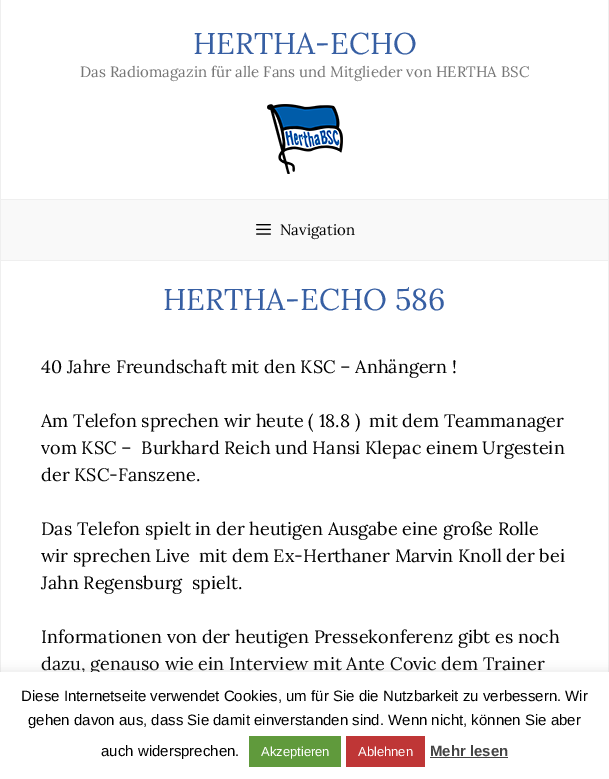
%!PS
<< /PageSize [609 779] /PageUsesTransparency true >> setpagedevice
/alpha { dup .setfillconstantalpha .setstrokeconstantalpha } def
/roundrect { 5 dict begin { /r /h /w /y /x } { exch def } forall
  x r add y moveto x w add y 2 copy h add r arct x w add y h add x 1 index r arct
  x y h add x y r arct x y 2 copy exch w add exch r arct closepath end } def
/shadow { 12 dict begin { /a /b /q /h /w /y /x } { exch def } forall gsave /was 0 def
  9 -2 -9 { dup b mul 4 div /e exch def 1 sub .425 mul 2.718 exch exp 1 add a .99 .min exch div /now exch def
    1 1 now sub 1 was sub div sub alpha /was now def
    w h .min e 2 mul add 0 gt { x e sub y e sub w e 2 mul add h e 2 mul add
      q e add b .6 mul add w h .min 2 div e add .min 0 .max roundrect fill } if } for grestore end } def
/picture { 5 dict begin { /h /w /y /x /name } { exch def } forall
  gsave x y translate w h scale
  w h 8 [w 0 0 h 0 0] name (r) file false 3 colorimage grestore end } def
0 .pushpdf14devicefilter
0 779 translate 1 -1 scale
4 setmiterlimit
0.937 setgray
0 0 609 779 rectfill
1 setgray
1 0 607 199 rectfill
/Lora-Regular [30 0 0 -30 0 0] selectfont
0.216 0.373 0.639 setrgbcolor
193 54 moveto (HERTHA-ECHO) show
/Lora-Regular [15 0 0 -15 0 0] selectfont
0.459 setgray
80 77 moveto (Das Radiomagazin für alle Fans und Mitglieder von HERTHA BSC) show
(img1.rgb) 267 104 76 70 picture
0.976 setgray
1 200 607 60 rectfill
(img2.rgb) 256 224 15 11 picture
0 setgray
280 235 moveto (Navigation) show
1 setgray
1 261 607 411 rectfill
/Lora-Regular [30 0 0 -30 0 0] selectfont
0.216 0.373 0.639 setrgbcolor
163 310 moveto (HERTHA-ECHO 586) show
/Lora-Regular [18 0 0 -18 0 0] selectfont
0 setgray
41 373 moveto (40 Jahre Freundschaft mit den KSC – Anhängern !) show
41 427 moveto (Am Telefon sprechen wir heute \( 18.8 \)  mit dem Teammanager) show
41 454 moveto (vom KSC –  Burkhard Reich und Hansi Klepac einem Urgestein) show
41 481 moveto (der KSC-Fanszene.) show
41 535 moveto (Das Telefon spielt in der heutigen Ausgabe eine große Rolle) show
41 562 moveto (wir sprechen Live  mit dem Ex-Herthaner Marvin Knoll der bei) show
41 589 moveto (Jahn Regensburg  spielt.) show
41 643 moveto (Informationen von der heutigen Pressekonferenz gibt es noch) show
41 670 moveto (dazu, genauso wie ein Interview mit Ante Covic dem Trainer) show
0.675 0.671 0.671 setrgbcolor
0 671 609 107 0 5 0.3 shadow
1 setgray
0 672 609 107 rectfill
/LiberationSans-Regular [15 0 0 -15 0 0] selectfont
0 setgray
21 701 moveto (Diese Internetseite verwendet Cookies, um für Sie die Nutzbarkeit zu verbessern. Wir) show
28 725 moveto (gehen davon aus, dass Sie damit einverstanden sind. Wenn nicht, können Sie aber) show
101 756 moveto (auch widersprechen.) show
0.376 0.604 0.235 setrgbcolor
249 736 92 31 rectfill
/LiberationSans-Regular [13 0 0 -13 0 0] selectfont
1 setgray
261 756 moveto (Akzeptieren) show
0.749 0.212 0.212 setrgbcolor
346 736 79 31 rectfill
1 setgray
358 756 moveto (Ablehnen) show
/LiberationSans-Bold [15 0 0 -15 0 0] selectfont
0.267 setgray
430 756 moveto (Mehr lesen) show
430 757 78 1 rectfill
.poppdf14devicefilter showpage
